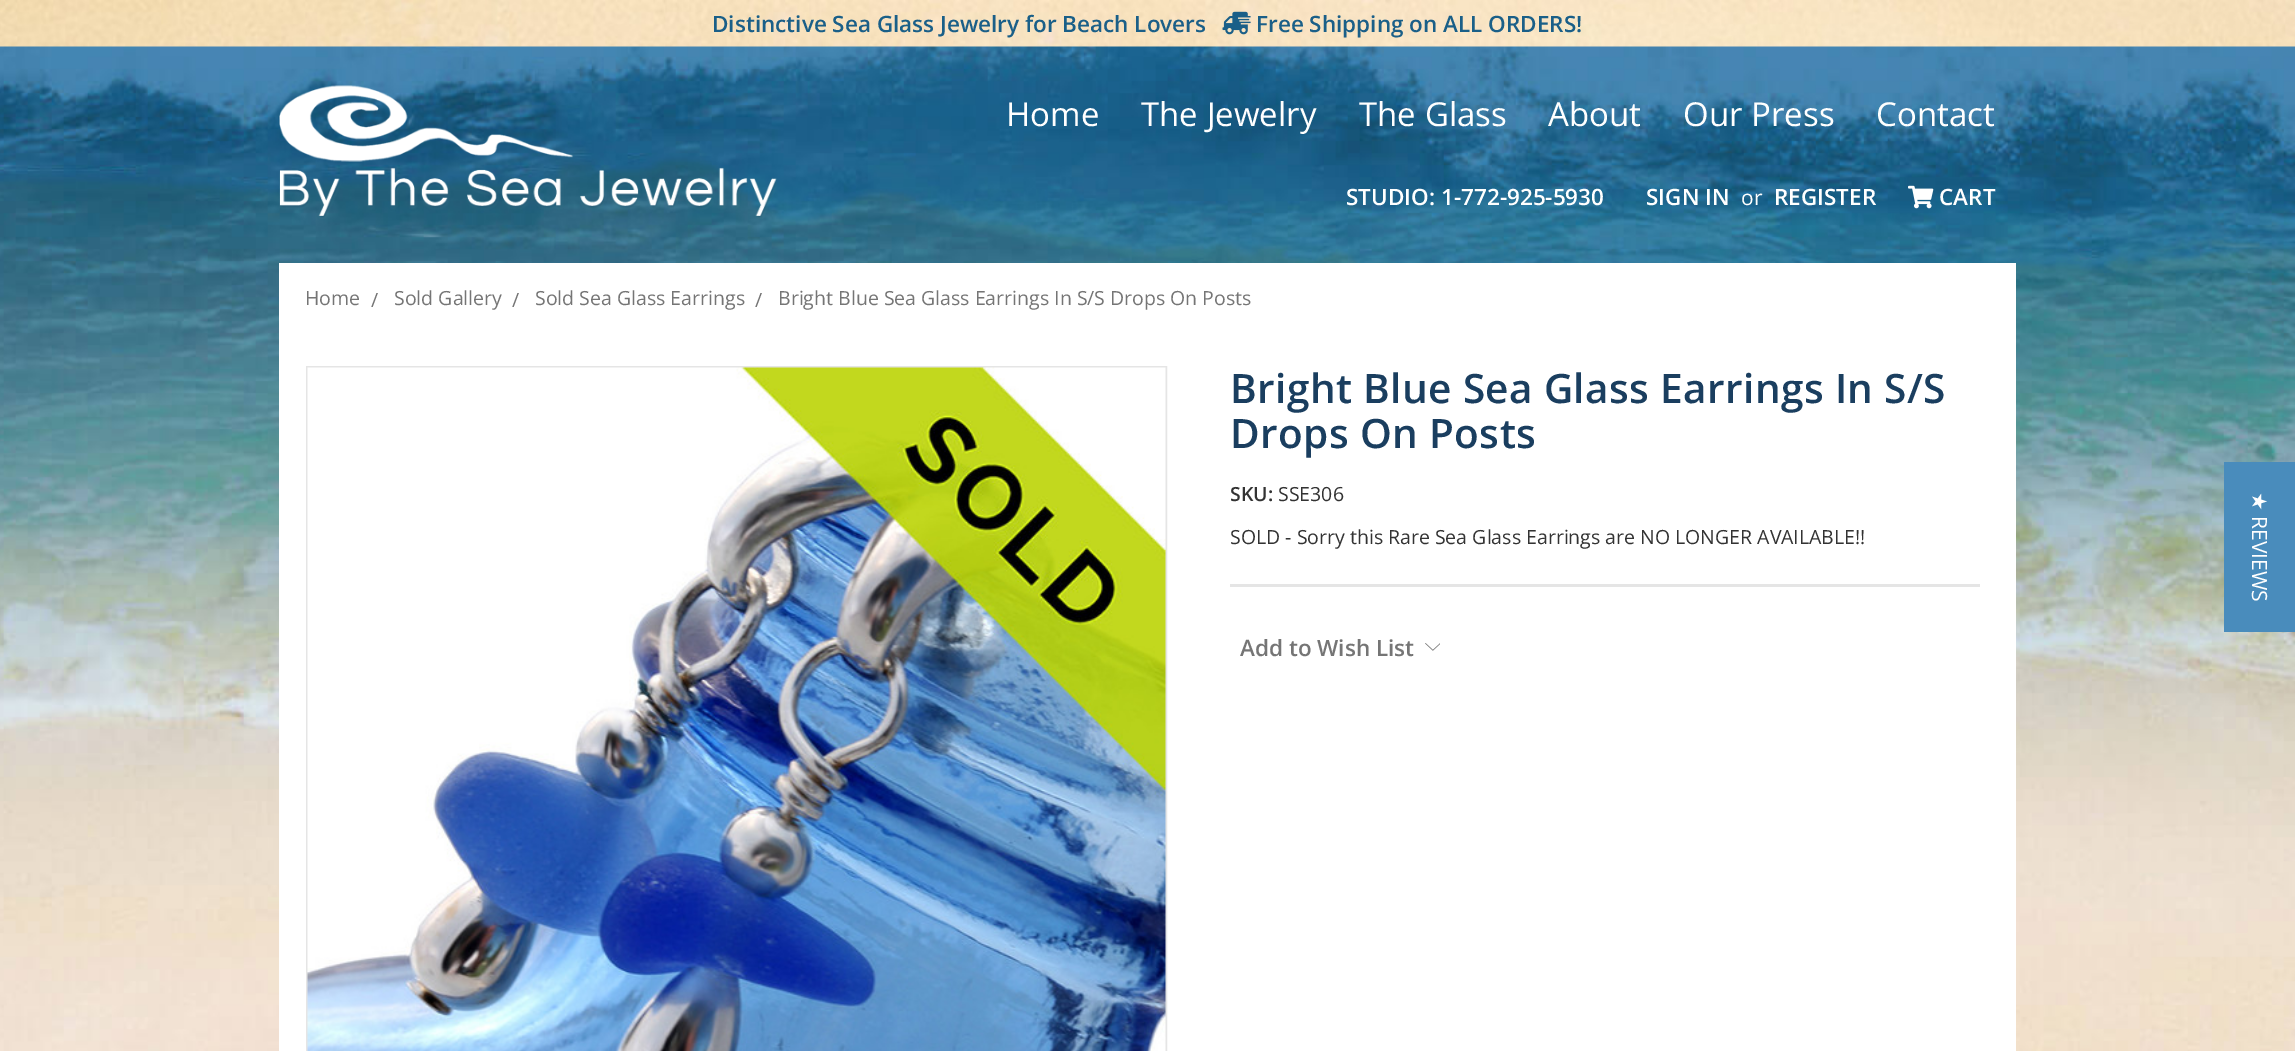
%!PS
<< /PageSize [2295 1051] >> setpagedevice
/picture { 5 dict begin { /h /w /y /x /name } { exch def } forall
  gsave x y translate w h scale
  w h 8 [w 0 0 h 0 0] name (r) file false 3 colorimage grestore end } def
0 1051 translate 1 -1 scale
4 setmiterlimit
1 setgray
0 0 2295 1051 rectfill
(img1.rgb) 0 46 2295 1005 picture
(img2.rgb) 0 0 2295 47 picture
/OpenSans-SemiBold [22.5 0 0 -22.5 0 0] selectfont
0.102 0.373 0.533 setrgbcolor
712 32 moveto (Distinctive Sea Glass Jewelry for Beach Lovers) show
(img3.rgb) 1222 11 29 24 picture
1256 32 moveto (Free Shipping on ALL ORDERS!) show
(img4.rgb) 279 85 498 134 picture
/OpenSans-Regular [33 0 0 -33 0 0] selectfont
1 setgray
1006 126 moveto (Home) show
1141 126 moveto (The Jewelry) show
1359 126 moveto (The Glass) show
1548 126 moveto (About) show
1683 126 moveto (Our Press) show
1876 126 moveto (Contact) show
/OpenSans-SemiBold [22.5 0 0 -22.5 0 0] selectfont
1346 205 moveto (STUDIO: 1-772-925-5930) show
1646 205 moveto (SIGN IN) show
/OpenSans-Regular [21 0 0 -21 0 0] selectfont
1741 205 moveto (or) show
/OpenSans-SemiBold [22.5 0 0 -22.5 0 0] selectfont
1774 205 moveto (REGISTER) show
(img5.rgb) 1908 185 26 24 picture
1939 205 moveto (CART) show
279 263 1737 788 rectfill
/OpenSans-Regular [19.5 0 0 -19.5 0 0] selectfont
0.459 setgray
305 305 moveto (Home) show
371 307 moveto (/) show
394 305 moveto (Sold Gallery) show
512 307 moveto (/) show
535 305 moveto (Sold Sea Glass Earrings) show
755 307 moveto (/) show
778 305 moveto (Bright Blue Sea Glass Earrings In S/S Drops On Posts) show
0.898 setgray
2 setlinewidth
307 367 859 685 rectstroke
(img6.rgb) 307 367 859 684 picture
1230 584 750 3 rectfill
/OpenSans-SemiBold [40.5 0 0 -40.5 0 0] selectfont
0.102 0.243 0.373 setrgbcolor
1230 403 moveto 0.4 0 (Bright Blue Sea Glass Earrings In S/S) ashow
1230 448 moveto 0.4 0 (Drops On Posts) ashow
/OpenSans-SemiBold [19.5 0 0 -19.5 0 0] selectfont
0.2 setgray
1230 501 moveto (SKU:) show
/OpenSans-Regular [19.5 0 0 -19.5 0 0] selectfont
1278 501 moveto (SSE306) show
1230 544 moveto (SOLD - Sorry this Rare Sea Glass Earrings are NO LONGER AVAILABLE!!) show
/OpenSans-SemiBold [22.5 0 0 -22.5 0 0] selectfont
0.459 setgray
1240 656 moveto (Add to Wish List) show
(img7.rgb) 1425 643 15 8 picture
0.286 0.549 0.737 setrgbcolor
2224 462 71 170 rectfill
/DejaVuSans-Regular [21 0 0 -21 0 0] selectfont
1 setgray
gsave 2252 492 translate 90 rotate 0 0 moveto (★) show grestore
/OpenSans-Regular [21 0 0 -21 0 0] selectfont
gsave 2252 516 translate 90 rotate 0 0 moveto (REVIEWS) show grestore
showpage
